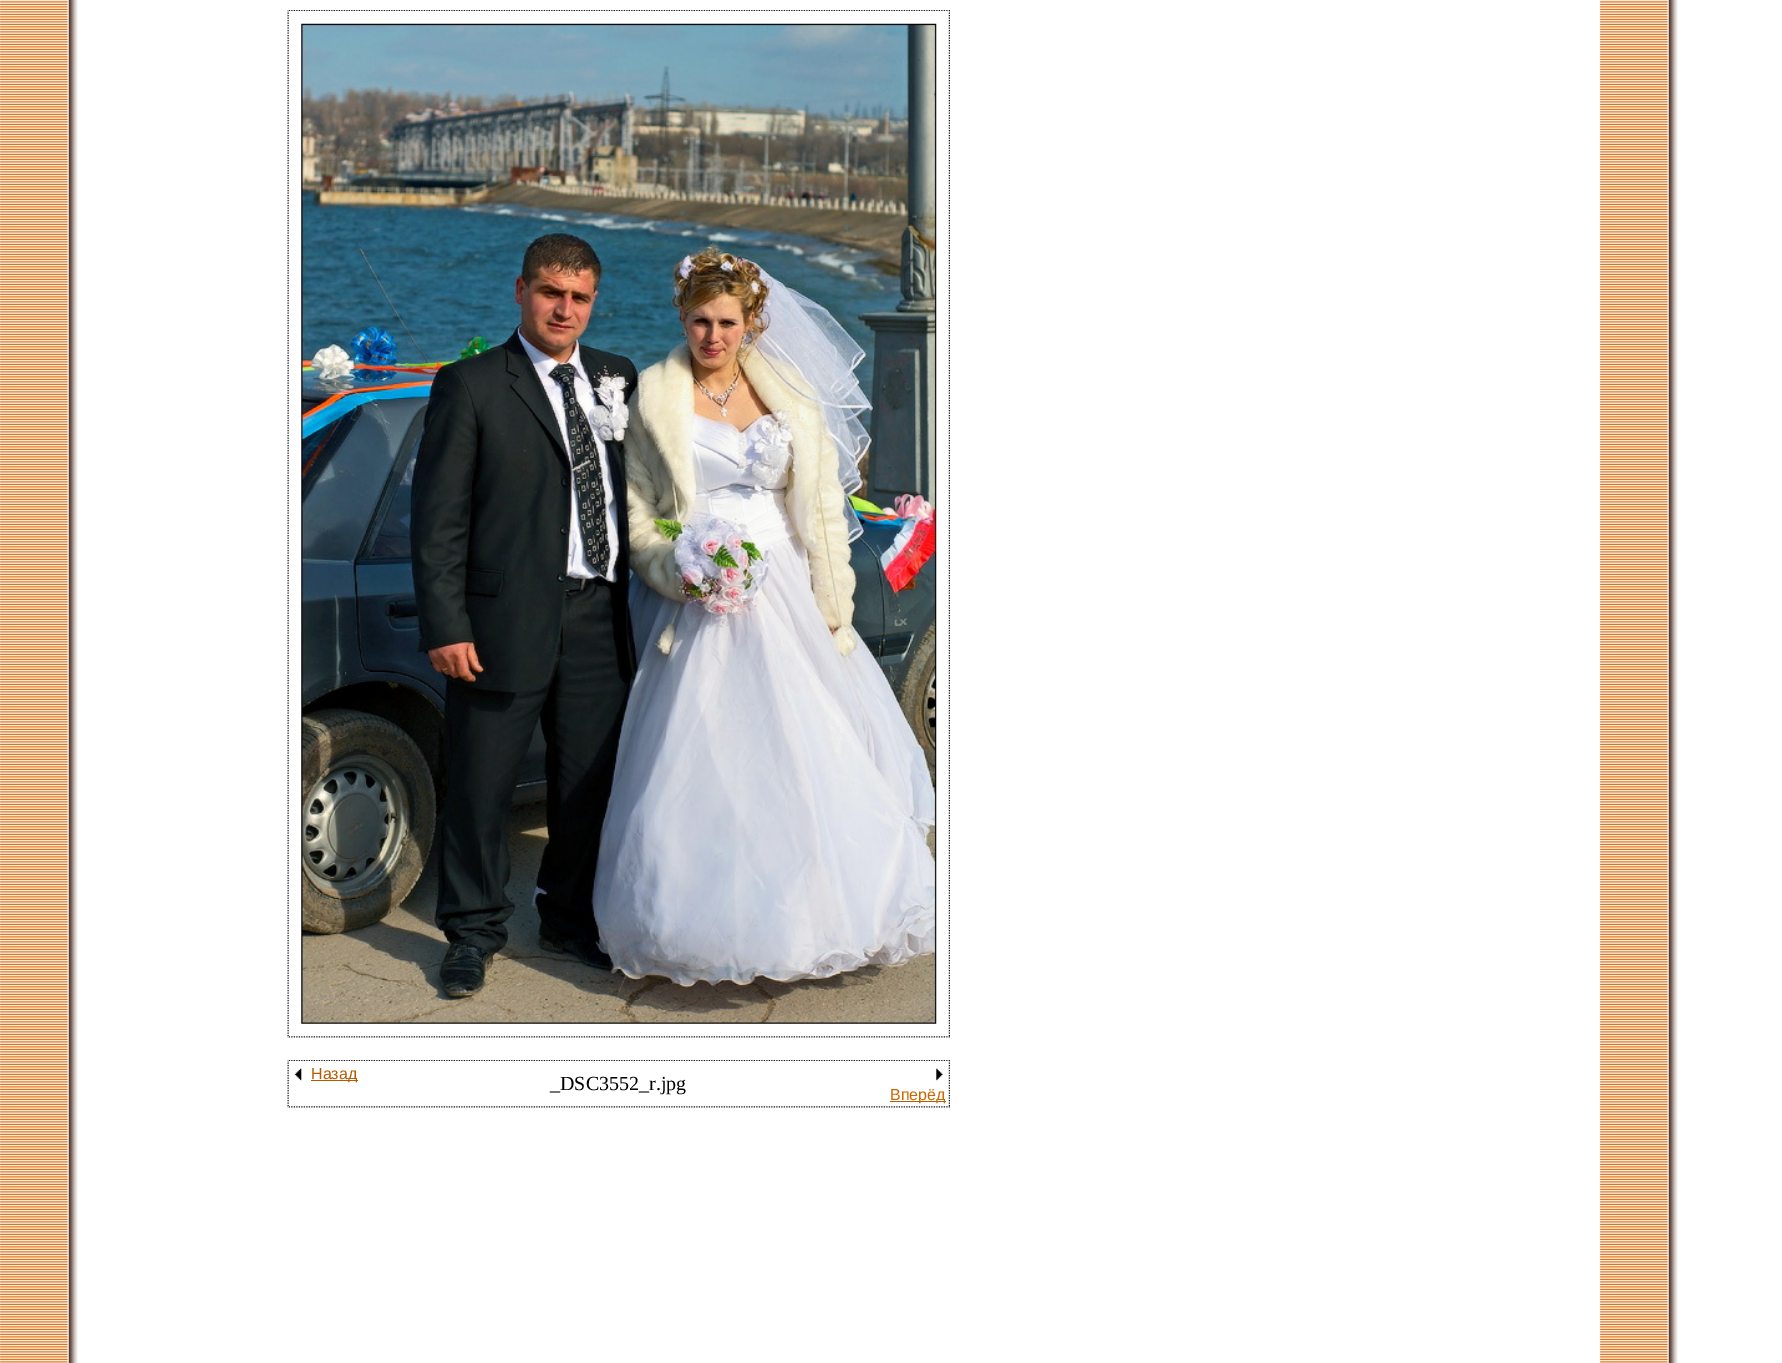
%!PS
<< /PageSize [1782 1363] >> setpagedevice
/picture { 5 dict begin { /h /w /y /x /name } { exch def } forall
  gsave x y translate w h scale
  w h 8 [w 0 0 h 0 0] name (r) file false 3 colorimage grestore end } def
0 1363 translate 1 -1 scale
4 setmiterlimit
1 setgray
0 0 1782 1363 rectfill
(img1.rgb) 0 0 1678 1363 picture
(img2.rgb) 287 10 663 2 picture
(img3.rgb) 287 11 2 1026 picture
289 11 660 1 rectfill
(img4.rgb) 301 23 636 1001 picture
(img5.rgb) 948 11 2 1026 picture
(img6.rgb) 287 1036 663 2 picture
(img2.rgb) 287 1060 663 2 picture
(img7.rgb) 287 1061 2 46 picture
289 1061 660 1 rectfill
(img8.rgb) 294 1068 8 13 picture
0.718 0.357 0 setrgbcolor
311 1080 47 1 rectfill
/LiberationSans-Regular [16 0 0 -16 0 0] selectfont
311 1079 moveto (Назад) show
/LiberationSerif-Regular [20 0 0 -20 0 0] selectfont
0 setgray
550 1090 moveto (_DSC3552_r.jpg) show
(img9.rgb) 936 1068 7 13 picture
0.718 0.357 0 setrgbcolor
890 1101 56 1 rectfill
/LiberationSans-Regular [16 0 0 -16 0 0] selectfont
0.8 0.4 0 setrgbcolor
890 1100 moveto (Вперёд) show
(img10.rgb) 948 1061 2 46 picture
(img6.rgb) 287 1106 663 2 picture
showpage
